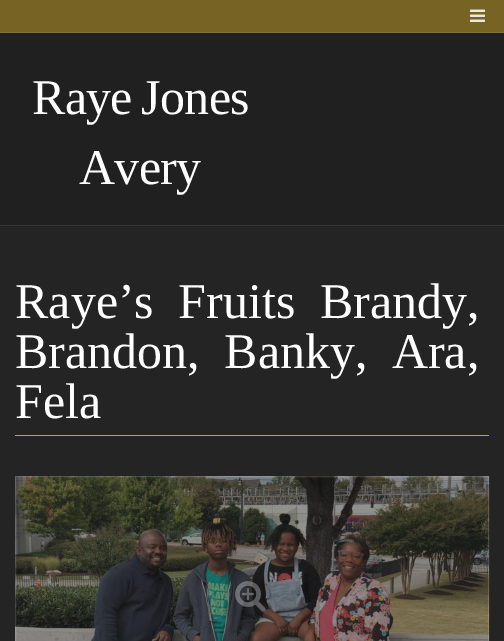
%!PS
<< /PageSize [504 641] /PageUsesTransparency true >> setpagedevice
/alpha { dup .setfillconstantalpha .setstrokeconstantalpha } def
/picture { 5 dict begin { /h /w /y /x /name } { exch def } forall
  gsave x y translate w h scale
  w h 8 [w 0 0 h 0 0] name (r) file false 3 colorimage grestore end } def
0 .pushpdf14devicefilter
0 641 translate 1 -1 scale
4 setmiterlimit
0.141 setgray
0 0 504 641 rectfill
0.125 setgray
0 33 504 192 rectfill
0.467 0.392 0.141 setrgbcolor
0 0 504 32 rectfill
0.522 0.455 0.227 setrgbcolor
0 32 504 1 rectfill
(img1.rgb) 470 9 15 13 picture
0.216 setgray
0 225 504 1 rectfill
/LiberationSerif-Regular [50 0 0 -50 0 0] selectfont
1 setgray
32 114 moveto -2 0 32 -0.75 0 (Raye Jones) awidthshow
79 184 moveto -0.75 0 (Avery) ashow
15 318 moveto 12 0 32 (Raye’s Fruits Brandy,) widthshow
15 368 moveto 12 0 32 (Brandon, Banky, Ara,) widthshow
15 418 moveto (Fela) show
0.698 0.635 0.431 setrgbcolor
15 435 474 1 rectfill
(img2.rgb) 15 476 474 165 picture
(img3.rgb) 235 581 31 31 picture
0.15 alpha
1 setgray
15.5 476.5 473 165 rectstroke
.poppdf14devicefilter showpage
